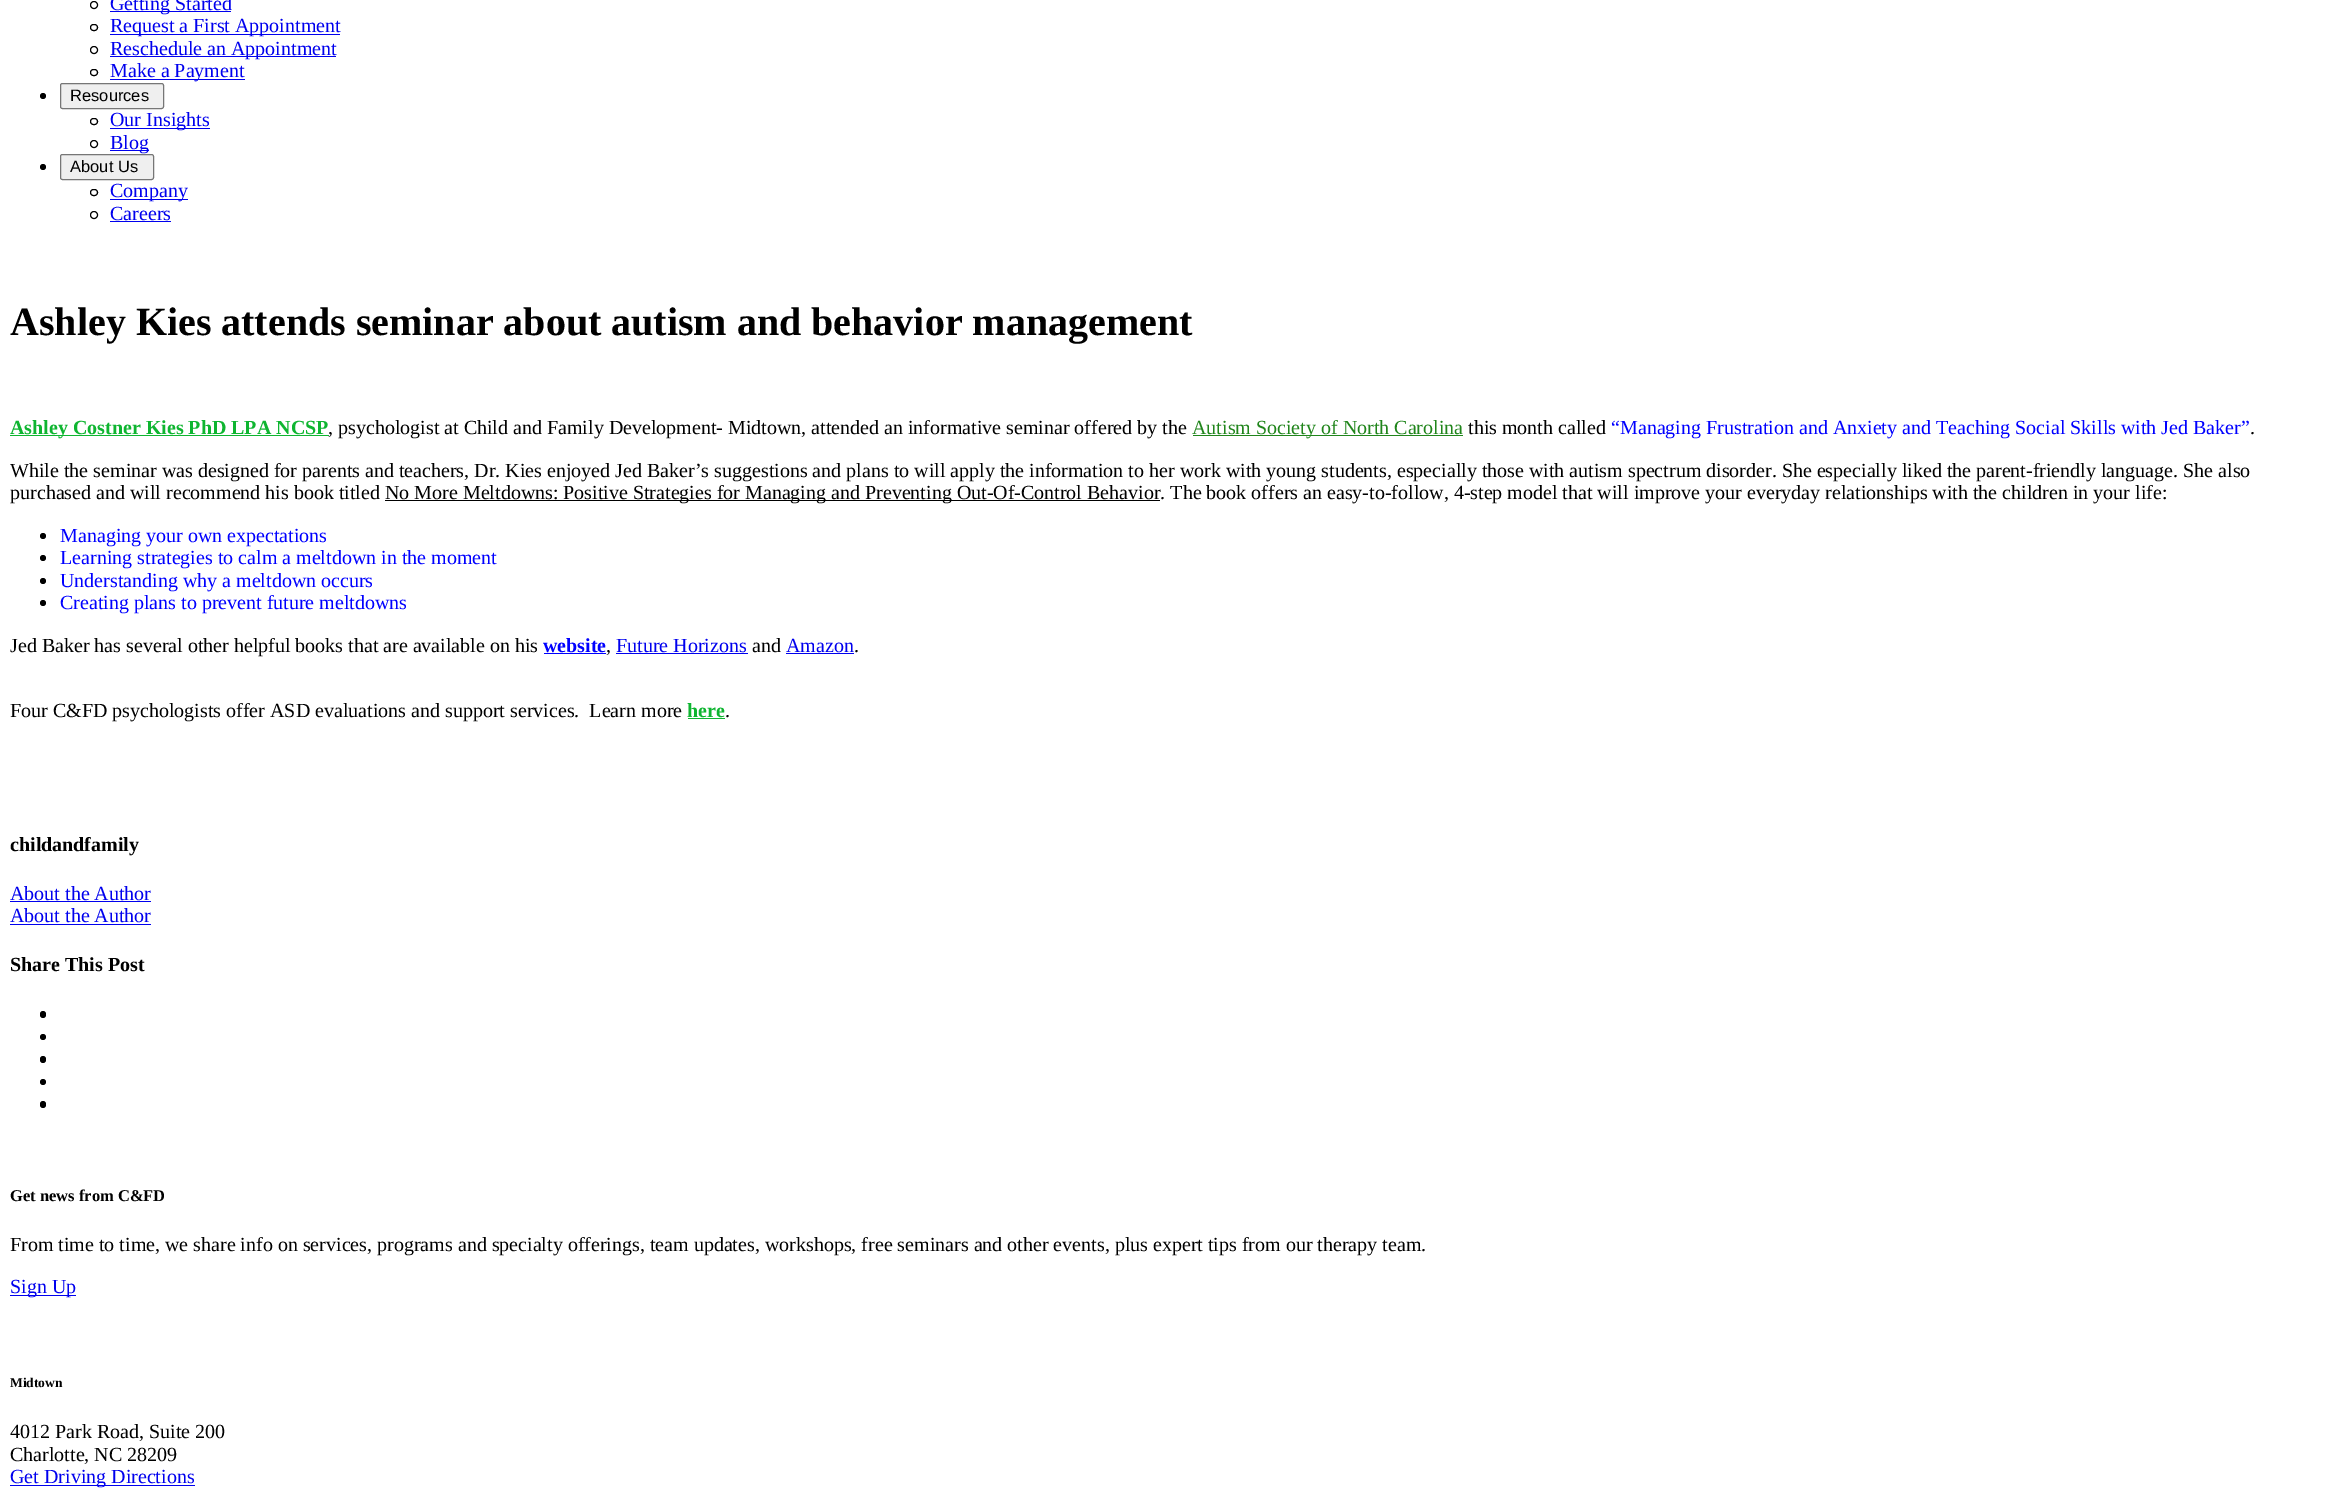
%!PS
<< /PageSize [2326 1495] >> setpagedevice
/roundrect { 5 dict begin { /r /h /w /y /x } { exch def } forall
  x r add y moveto x w add y 2 copy h add r arct x w add y h add x 1 index r arct
  x y h add x y r arct x y 2 copy exch w add exch r arct closepath end } def
0 1495 translate 1 -1 scale
4 setmiterlimit
1 setgray
0 0 2326 1495 rectfill
0 setgray
newpath 94 5 3.5 0 360 arc closepath stroke
0 0 0.933 setrgbcolor
110 11 121 1 rectfill
/LiberationSerif-Regular [20 0 0 -20 0 0] selectfont
110 10 moveto (Getting Started) show
0 setgray
90.5 24.5 7 6 3 roundrect stroke
0 0 0.933 setrgbcolor
110 34 230 1 rectfill
110 32 moveto (Request a First Appointment) show
0 setgray
newpath 94 50 3.5 0 360 arc closepath stroke
0 0 0.933 setrgbcolor
110 56 226 1 rectfill
110 55 moveto (Reschedule an Appointment) show
0 setgray
90.5 69.5 7 6 3 roundrect stroke
0 0 0.933 setrgbcolor
110 79 135 1 rectfill
110 77 moveto (Make a Payment) show
0 setgray
newpath 43 96 3 0 360 arc closepath fill
0.937 setgray
60.5 83.5 103 25 2 roundrect gsave fill grestore
0.463 setgray
stroke
/LiberationSans-Regular [16.5 0 0 -16.5 0 0] selectfont
0 setgray
70 101 moveto (Resources) show
90.5 118.5 7 6 3 roundrect stroke
0 0 0.933 setrgbcolor
110 128 100 1 rectfill
/LiberationSerif-Regular [20 0 0 -20 0 0] selectfont
110 126 moveto (Our Insights) show
0 setgray
newpath 94 144 3.5 0 360 arc closepath stroke
0 0 0.933 setrgbcolor
110 150 39 1 rectfill
110 149 moveto (Blog) show
0 setgray
newpath 43 167 3 0 360 arc closepath fill
0.937 setgray
60.5 154.5 93 25 2 roundrect gsave fill grestore
0.463 setgray
stroke
/LiberationSans-Regular [16.5 0 0 -16.5 0 0] selectfont
0 setgray
70 172 moveto (About Us) show
90.5 189.5 7 6 3 roundrect stroke
0 0 0.933 setrgbcolor
110 199 78 1 rectfill
/LiberationSerif-Regular [20 0 0 -20 0 0] selectfont
110 197 moveto (Company) show
0 setgray
newpath 94 215 3.5 0 360 arc closepath stroke
0 0 0.933 setrgbcolor
110 220 moveto (Careers) show
110 221 61 1 rectfill
/LiberationSerif-Bold [40 0 0 -40 0 0] selectfont
0 setgray
10 335 moveto (Ashley Kies attends seminar about autism and behavior management) show
0.055 0.71 0.188 setrgbcolor
10 435 319 1 rectfill
/LiberationSerif-Bold [20 0 0 -20 0 0] selectfont
10 434 moveto (Ashley Costner Kies PhD LPA NCSP) show
/LiberationSerif-Regular [20 0 0 -20 0 0] selectfont
0 setgray
328 434 moveto (, psychologist at Child and Family Development- Midtown, attended an informative seminar offered by the) show
0.125 0.522 0.106 setrgbcolor
1193 435 270 1 rectfill
1192 434 moveto (Autism Society of North Carolina) show
0 setgray
1468 434 moveto (this month called) show
0 0 1 setrgbcolor
1611 434 moveto (“Managing Frustration and Anxiety and Teaching Social Skills with Jed Baker”) show
0 setgray
2250 434 moveto (.) show
10 477 moveto (While the seminar was designed for parents and teachers, Dr. Kies enjoyed Jed Baker’s suggestions and plans to will apply the information to her work with young students, especially those with autism spectrum disorder. She especially liked the parent-friendly language. She also) show
10 499 moveto (purchased and will recommend his book titled) show
385 500 775 1 rectfill
385 499 moveto (No More Meltdowns: Positive Strategies for Managing and Preventing Out-Of-Control Behavior. The book offers an easy-to-follow, 4-step model that will improve your everyday relationships with the children in your life:) show
newpath 43 536 3 0 360 arc closepath fill
0 0 1 setrgbcolor
60 542 moveto (Managing your own expectations) show
0 setgray
newpath 43 558 3 0 360 arc closepath fill
0 0 1 setrgbcolor
60 564 moveto (Learning strategies to calm a meltdown in the moment) show
0 setgray
newpath 43 581 3 0 360 arc closepath fill
0 0 1 setrgbcolor
60 587 moveto (Understanding why a meltdown occurs) show
0 setgray
newpath 43 603 3 0 360 arc closepath fill
0 0 1 setrgbcolor
60 609 moveto (Creating plans to prevent future meltdowns) show
0 setgray
10 652 moveto (Jed Baker has several other helpful books that are available on his) show
/LiberationSerif-Bold [20 0 0 -20 0 0] selectfont
0 0 1 setrgbcolor
543 652 moveto (website) show
544 653 62 1 rectfill
/LiberationSerif-Regular [20 0 0 -20 0 0] selectfont
0 setgray
606 652 moveto (,) show
0 0 0.933 setrgbcolor
616 652 moveto (Future Horizons) show
616 653 132 1 rectfill
0 setgray
752 652 moveto (and) show
0 0 0.933 setrgbcolor
786 652 moveto (Amazon) show
786 653 68 1 rectfill
0 setgray
854 652 moveto (.) show
10 717 moveto (Four C&FD psychologists offer ASD evaluations and support services.  Learn more) show
/LiberationSerif-Bold [20 0 0 -20 0 0] selectfont
0.055 0.71 0.188 setrgbcolor
687 717 moveto (here) show
688 718 37 1 rectfill
/LiberationSerif-Regular [20 0 0 -20 0 0] selectfont
0 setgray
725 717 moveto (.) show
/LiberationSerif-Bold [20 0 0 -20 0 0] selectfont
10 851 moveto (childandfamily) show
/LiberationSerif-Regular [20 0 0 -20 0 0] selectfont
0 0 0.933 setrgbcolor
10 900 moveto (About the Author) show
10 901 141 1 rectfill
10 922 moveto (About the Author) show
10 924 141 1 rectfill
/LiberationSerif-Bold [20 0 0 -20 0 0] selectfont
0 setgray
10 971 moveto (Share This Post) show
40 1011 6 7 3 roundrect fill
newpath 43 1037 3 0 360 arc closepath fill
40 1056 6 7 3 roundrect fill
newpath 43 1082 3 0 360 arc closepath fill
40 1101 6 7 3 roundrect fill
/LiberationSerif-Bold [16.5 0 0 -16.5 0 0] selectfont
10 1201 moveto (Get news from C&FD) show
/LiberationSerif-Regular [20 0 0 -20 0 0] selectfont
10 1251 moveto (From time to time, we share info on services, programs and specialty offerings, team updates, workshops, free seminars and other events, plus expert tips from our therapy team.) show
0 0 0.933 setrgbcolor
10 1295 66 1 rectfill
10 1293 moveto (Sign Up) show
/LiberationSerif-Bold [13.5 0 0 -13.5 0 0] selectfont
0 setgray
10 1387 moveto (Midtown) show
/LiberationSerif-Regular [20 0 0 -20 0 0] selectfont
10 1438 moveto (4012 Park Road, Suite 200) show
10 1461 moveto (Charlotte, NC 28209) show
0 0 0.933 setrgbcolor
10 1485 185 1 rectfill
10 1483 moveto (Get Driving Directions) show
showpage
